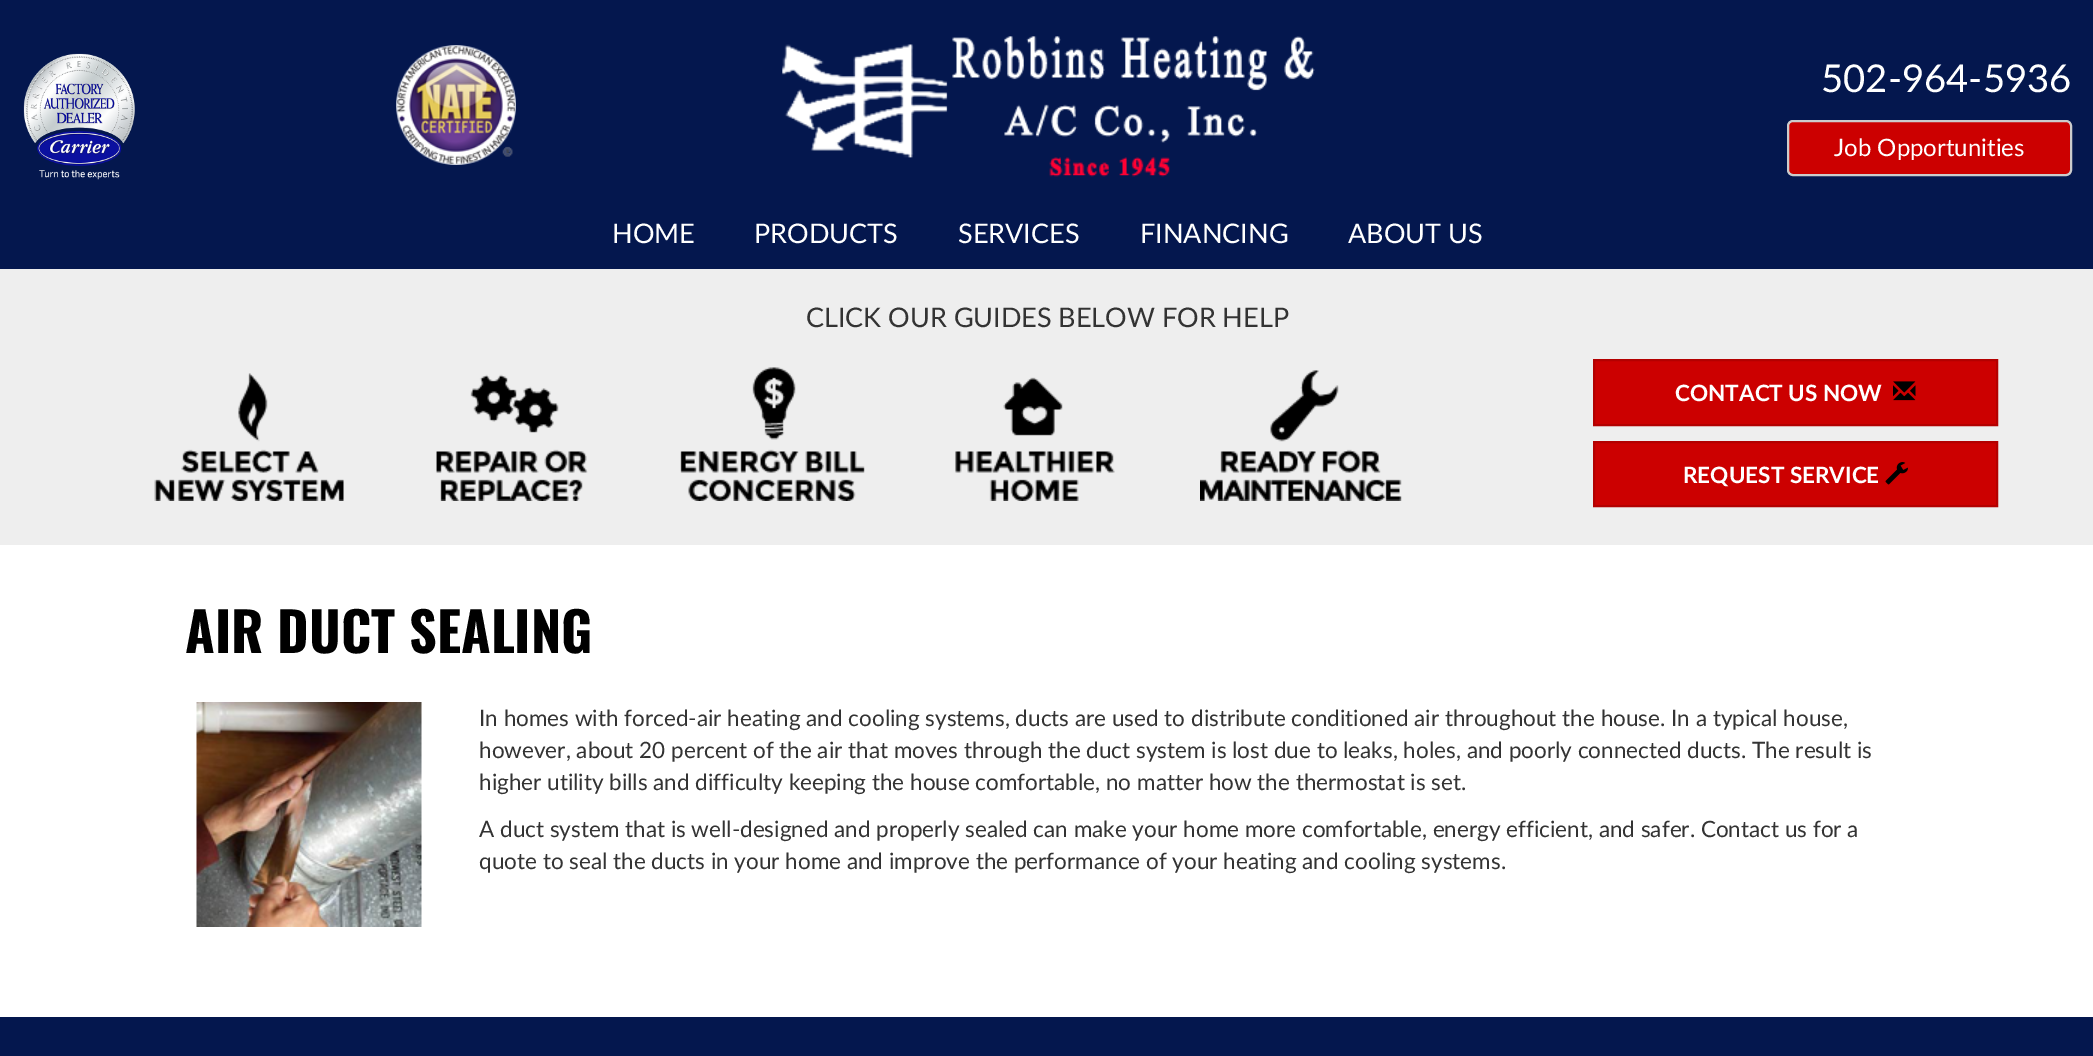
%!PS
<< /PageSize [2093 1056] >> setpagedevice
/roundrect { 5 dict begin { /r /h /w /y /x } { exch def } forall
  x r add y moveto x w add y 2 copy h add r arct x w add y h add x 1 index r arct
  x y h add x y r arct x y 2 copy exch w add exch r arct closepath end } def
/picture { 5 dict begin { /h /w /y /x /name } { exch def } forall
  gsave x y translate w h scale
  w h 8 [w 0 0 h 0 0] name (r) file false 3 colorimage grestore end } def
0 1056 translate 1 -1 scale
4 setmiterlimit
1 setgray
0 0 2093 1056 rectfill
0.016 0.09 0.306 setrgbcolor
0 0 2093 269 rectfill
(img1.rgb) 23 53 112 127 picture
(img2.rgb) 396 45 120 120 picture
(img3.rgb) 782 36 533 141 picture
/Lato-Regular [38.25 0 0 -38.25 0 0] selectfont
1 setgray
1821 92 moveto (502-964-5936) show
0.8 0 0 setrgbcolor
1788 121 283 54 5 roundrect gsave fill grestore
0.8 setgray
2 setlinewidth
stroke
/Lato-Regular [24 0 0 -24 0 0] selectfont
1 setgray
1834 156 moveto (Job Opportunities) show
/Lato-Regular [27 0 0 -27 0 0] selectfont
612 243 moveto (HOME) show
754 243 moveto (PRODUCTS) show
958 243 moveto (SERVICES) show
1140 243 moveto (FINANCING) show
1348 243 moveto (ABOUT US) show
0.933 setgray
0 269 2093 276 rectfill
0.2 setgray
806 327 moveto (CLICK OUR GUIDES BELOW FOR HELP) show
(img4.rgb) 154 373 190 128 picture
(img5.rgb) 436 374 152 127 picture
(img6.rgb) 680 367 185 134 picture
(img7.rgb) 955 377 160 124 picture
(img8.rgb) 1200 370 202 131 picture
0.8 0 0 setrgbcolor
newpath 1594 360 moveto 1997 360 lineto 1997 425 lineto 1594 425 lineto closepath gsave fill grestore
0.702 0 0 setrgbcolor
stroke
/Lato-Bold [22.5 0 0 -22.5 0 0] selectfont
1 setgray
1675 401 moveto (CONTACT US NOW) show
(img9.rgb) 1893 381 23 20 picture
0.8 0 0 setrgbcolor
newpath 1594 442 moveto 1997 442 lineto 1997 506 lineto 1594 506 lineto closepath gsave fill grestore
0.702 0 0 setrgbcolor
stroke
1 setgray
1683 483 moveto (REQUEST SERVICE) show
(img10.rgb) 1885 462 23 23 picture
/Oswald-Bold [54 0 0 -54 0 0] selectfont
0 setgray
185 653 moveto (AIR DUCT SEALING) show
(img11.rgb) 196 702 226 225 picture
/Lato-Regular [22.5 0 0 -22.5 0 0] selectfont
0.2 setgray
479 726 moveto (In homes with forced-air heating and cooling systems, ducts are used to distribute conditioned air throughout the house. In a typical house,) show
479 758 moveto (however, about 20 percent of the air that moves through the duct system is lost due to leaks, holes, and poorly connected ducts. The result is) show
479 790 moveto (higher utility bills and difficulty keeping the house comfortable, no matter how the thermostat is set.) show
479 837 moveto (A duct system that is well-designed and properly sealed can make your home more comfortable, energy efficient, and safer. Contact us for a) show
479 869 moveto (quote to seal the ducts in your home and improve the performance of your heating and cooling systems.) show
0.016 0.09 0.306 setrgbcolor
0 1017 2093 39 rectfill
showpage
